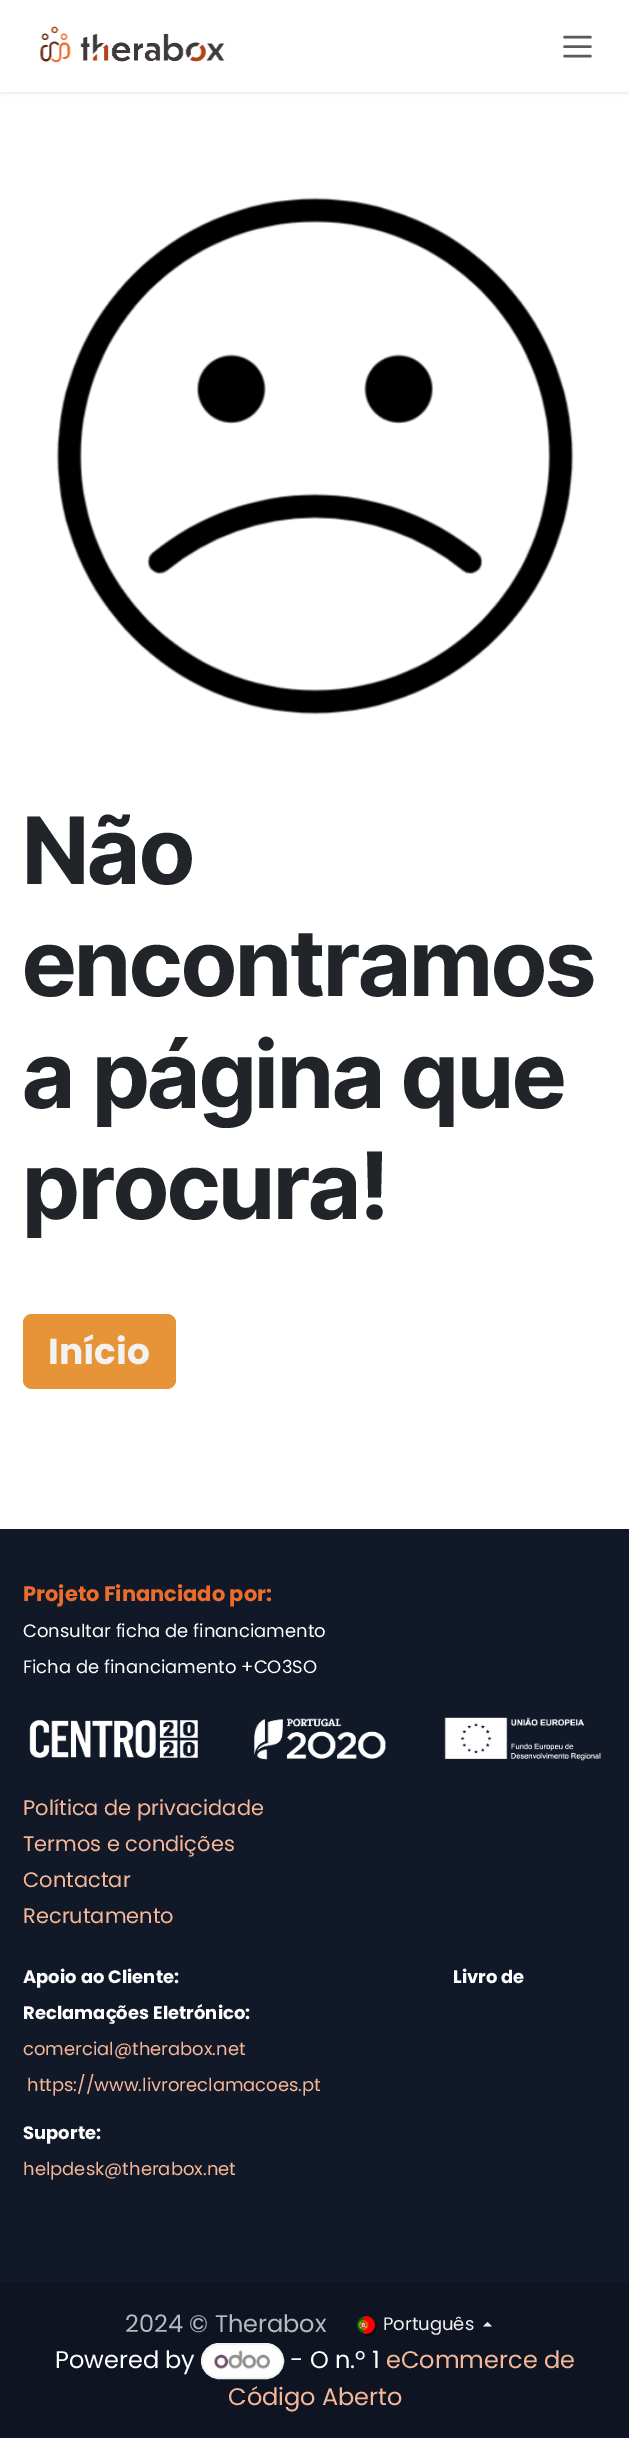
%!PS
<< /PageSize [629 2438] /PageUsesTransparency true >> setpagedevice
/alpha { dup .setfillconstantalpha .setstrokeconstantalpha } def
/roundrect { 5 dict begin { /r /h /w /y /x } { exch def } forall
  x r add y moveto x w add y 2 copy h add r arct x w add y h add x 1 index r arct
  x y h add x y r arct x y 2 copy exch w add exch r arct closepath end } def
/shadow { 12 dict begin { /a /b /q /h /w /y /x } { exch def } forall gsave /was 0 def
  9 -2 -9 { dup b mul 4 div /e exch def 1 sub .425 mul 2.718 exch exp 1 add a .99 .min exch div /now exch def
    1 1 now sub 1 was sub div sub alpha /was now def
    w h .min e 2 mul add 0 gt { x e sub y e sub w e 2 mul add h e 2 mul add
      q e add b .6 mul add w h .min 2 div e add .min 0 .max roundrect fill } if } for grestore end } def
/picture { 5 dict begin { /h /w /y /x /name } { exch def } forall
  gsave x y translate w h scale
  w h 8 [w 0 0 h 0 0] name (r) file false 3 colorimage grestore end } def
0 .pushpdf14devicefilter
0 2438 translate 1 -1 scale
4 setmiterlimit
1 setgray
0 0 629 2438 rectfill
0 setgray
0 2 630 91 0 2 0.1 shadow
1 setgray
0 0 629 92 rectfill
(img1.rgb) 40 26 185 37 picture
0.349 0.361 0.373 setrgbcolor
2.4 setlinewidth
1 setlinecap
newpath 564.5 37 moveto 590.5 37 lineto 564.5 46.5 moveto 590.5 46.5 lineto 564.5 56 moveto 590.5 56 lineto stroke
(img2.rgb) 56 197 518 518 picture
/InterTight-Bold [93 0 0 -93 0 0] selectfont
0.129 0.145 0.161 setrgbcolor
23 884 moveto (Não) show
23 996 moveto (encontramos) show
23 1108 moveto (a página que) show
23 1219 moveto (procura!) show
0.906 0.58 0.224 setrgbcolor
23 1314 153 75 9 roundrect fill
/Poppins-Bold [36 0 0 -36 0 0] selectfont
0.953 0.949 0.949 setrgbcolor
48 1364 moveto (Início) show
0.067 0.094 0.153 setrgbcolor
0 1529 629 753 rectfill
/Poppins-Bold [21 0 0 -21 0 0] selectfont
0.925 0.424 0.173 setrgbcolor
23 1601 moveto (Projeto Financiado por:) show
/Poppins-Regular [18 0 0 -18 0 0] selectfont
1 setgray
23 1637 moveto (Consultar ficha de financiamento) show
23 1673 moveto (Ficha de financiamento +CO3SO) show
(img3.rgb) 29 1717 572 44 picture
/Poppins-Regular [21 0 0 -21 0 0] selectfont
0.965 0.718 0.596 setrgbcolor
23 1815 moveto (Política de privacidade) show
23 1851 moveto (Termos e condições) show
23 1887 moveto (Contactar) show
23 1923 moveto (Recrutamento) show
/Poppins-Bold [18 0 0 -18 0 0] selectfont
1 setgray
23 1983 moveto (Apoio ao Cliente:) show
453 1983 moveto (Livro de) show
23 2019 moveto (Reclamações Eletrónico:) show
/Poppins-Regular [18 0 0 -18 0 0] selectfont
0.965 0.718 0.596 setrgbcolor
23 2055 moveto (comercial@therabox.net) show
27 2091 moveto (https://www.livroreclamacoes.pt) show
/Poppins-Bold [18 0 0 -18 0 0] selectfont
1 setgray
23 2139 moveto (Suporte:) show
/Poppins-Regular [18 0 0 -18 0 0] selectfont
0.965 0.718 0.596 setrgbcolor
23 2175 moveto (helpdesk@therabox.net) show
0.055 0.078 0.129 setrgbcolor
0 2282 629 156 rectfill
/Poppins-Regular [24 0 0 -24 0 0] selectfont
0.718 0.725 0.737 setrgbcolor
125 2332 moveto (2024 © Therabox) show
0 setgray
359 2318 18 18 9 1 0.43 shadow
(img4.rgb) 357 2316 18 18 picture
/Poppins-Regular [18 0 0 -18 0 0] selectfont
0.953 0.949 0.949 setrgbcolor
383 2330 moveto (Português) show
newpath 492 2326.5 moveto 483 2326.5 lineto 487.5 2322 lineto closepath fill
/Poppins-Regular [24 0 0 -24 0 0] selectfont
1 setgray
55 2368 moveto (Powered by) show
0.996 setgray
202 2344 81 34 17 roundrect gsave fill grestore
0.953 0.949 0.949 setrgbcolor
2 setlinewidth
0 setlinecap
stroke
(img5.rgb) 214 2350 56 19 picture
1 setgray
290 2368 moveto (- O n.º 1) show
0.965 0.718 0.596 setrgbcolor
386 2368 moveto (eCommerce de) show
228 2405 moveto (Código Aberto) show
.poppdf14devicefilter showpage
